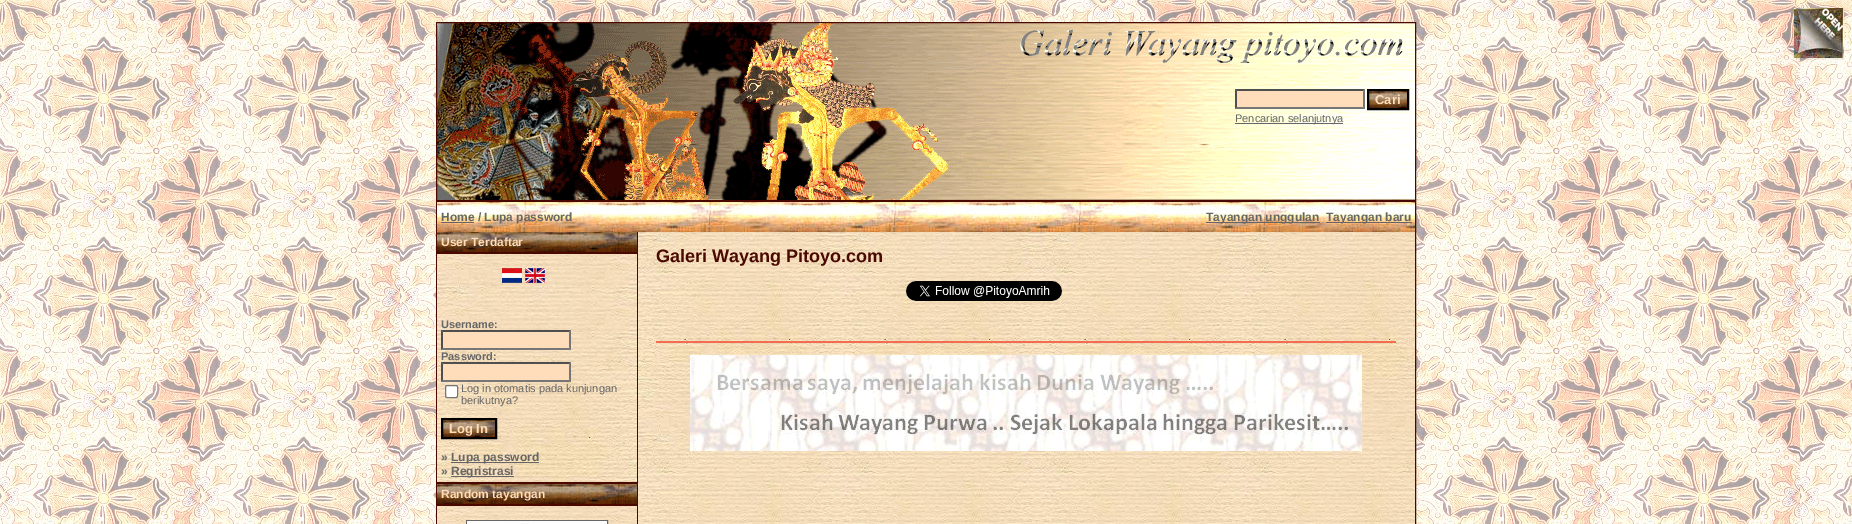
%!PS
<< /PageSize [1852 524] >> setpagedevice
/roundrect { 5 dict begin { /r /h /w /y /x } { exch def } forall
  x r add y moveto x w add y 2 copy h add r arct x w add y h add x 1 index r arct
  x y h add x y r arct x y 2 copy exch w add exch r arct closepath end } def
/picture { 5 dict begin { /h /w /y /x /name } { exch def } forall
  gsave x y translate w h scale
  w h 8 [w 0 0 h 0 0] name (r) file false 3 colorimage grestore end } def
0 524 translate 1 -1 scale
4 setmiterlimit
1 setgray
0 0 1852 524 rectfill
(img1.rgb) 0 0 1852 524 picture
(img2.rgb) 1794 8 50 50 picture
(img3.rgb) 1795 8 49 52 picture
(img4.rgb) 437 23 978 177 picture
0.29 0.035 0 setrgbcolor
436.5 22.5 979 178 rectstroke
1 0.867 0.733 setrgbcolor
1235 89 130 20 rectfill
0.31 setgray
newpath 1235 89 moveto 1365 89 lineto 1363 91 lineto 1237 91 lineto closepath fill
0.463 setgray
newpath 1365 89 moveto 1365 109 lineto 1363 107 lineto 1363 91 lineto closepath fill
newpath 1365 109 moveto 1235 109 lineto 1237 107 lineto 1363 107 lineto closepath fill
0.31 setgray
newpath 1235 109 moveto 1235 89 lineto 1237 91 lineto 1237 107 lineto closepath fill
(img5.rgb) 1369 91 38 17 picture
0 setgray
2 setlinewidth
1368 90 40 19 rectstroke
/LiberationSans-Bold [13 0 0 -13 0 0] selectfont
1 0.867 0.733 setrgbcolor
1375 104 moveto (Cari) show
0.4 setgray
1235 123 108 1 rectfill
/LiberationSans-Regular [11 0 0 -11 0 0] selectfont
1235 122 moveto (Pencarian selanjutnya) show
(img6.rgb) 638 232 777 292 picture
0.29 0.035 0 setrgbcolor
1 setlinewidth
436.5 201.5 979 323 rectstroke
(img7.rgb) 437 202 978 30 picture
0.4 setgray
441 222 33 1 rectfill
/LiberationSans-Bold [12 0 0 -12 0 0] selectfont
441 221 moveto (Home / Lupa password) show
1206 222 114 1 rectfill
1206 221 moveto (Tayangan unggulan) show
1326 222 86 1 rectfill
1326 221 moveto (Tayangan baru) show
(img8.rgb) 437 232 200 20 picture
1 0.867 0.733 setrgbcolor
441 246 moveto (User Terdaftar) show
0.29 0.035 0 setrgbcolor
437 252 200 2 rectfill
(img9.rgb) 437 254 200 46 picture
(img10.rgb) 502 268 20 15 picture
(img11.rgb) 525 268 20 15 picture
(img12.rgb) 437 300 200 182 picture
/LiberationSans-Bold [11 0 0 -11 0 0] selectfont
0.4 setgray
441 328 moveto (Username:) show
1 0.867 0.733 setrgbcolor
441 330 130 20 rectfill
0.31 setgray
newpath 441 330 moveto 571 330 lineto 569 332 lineto 443 332 lineto closepath fill
0.463 setgray
newpath 571 330 moveto 571 350 lineto 569 348 lineto 569 332 lineto closepath fill
newpath 571 350 moveto 441 350 lineto 443 348 lineto 569 348 lineto closepath fill
0.31 setgray
newpath 441 350 moveto 441 330 lineto 443 332 lineto 443 348 lineto closepath fill
0.4 setgray
441 360 moveto (Password:) show
1 0.867 0.733 setrgbcolor
441 362 130 20 rectfill
0.31 setgray
newpath 441 362 moveto 571 362 lineto 569 364 lineto 443 364 lineto closepath fill
0.463 setgray
newpath 571 362 moveto 571 382 lineto 569 380 lineto 569 364 lineto closepath fill
newpath 571 382 moveto 441 382 lineto 443 380 lineto 569 380 lineto closepath fill
0.31 setgray
newpath 441 382 moveto 441 362 lineto 443 364 lineto 443 380 lineto closepath fill
1 setgray
445.5 385.5 12 12 1.5 roundrect gsave fill grestore
0.463 setgray
stroke
/LiberationSans-Regular [11 0 0 -11 0 0] selectfont
0.4 setgray
461 392 moveto (Log in otomatis pada kunjungan) show
461 404 moveto (berikutnya?) show
(img13.rgb) 443 420 52 17 picture
0 setgray
2 setlinewidth
442 419 54 19 rectstroke
/LiberationSans-Bold [13 0 0 -13 0 0] selectfont
1 0.867 0.733 setrgbcolor
449 433 moveto (Log In) show
/LiberationSans-Bold [12 0 0 -12 0 0] selectfont
0.4 setgray
441 461 moveto (») show
451 462 88 1 rectfill
451 461 moveto (Lupa password) show
441 475 moveto (») show
451 476 63 1 rectfill
451 475 moveto (Regristrasi) show
0.29 0.035 0 setrgbcolor
437 482 200 2 rectfill
(img8.rgb) 437 484 200 20 picture
1 0.867 0.733 setrgbcolor
441 498 moveto (Random tayangan) show
0.29 0.035 0 setrgbcolor
437 504 200 2 rectfill
(img14.rgb) 437 506 200 18 picture
0.4 setgray
1 setlinewidth
466.5 520.5 141 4 rectstroke
(img15.rgb) 467 521 140 3 picture
0.29 0.035 0 setrgbcolor
637 232 1 292 rectfill
/LiberationSans-Bold [18 0 0 -18 0 0] selectfont
656 262 moveto (Galeri Wayang Pitoyo.com) show
(img16.rgb) 906 281 156 20 picture
0.953 0.424 0.31 setrgbcolor
657 342 738 1 rectfill
656 341 740 1 rectfill
1395 341 1 2 rectfill
656 341 1 2 rectfill
(img17.rgb) 690 355 672 96 picture
showpage
